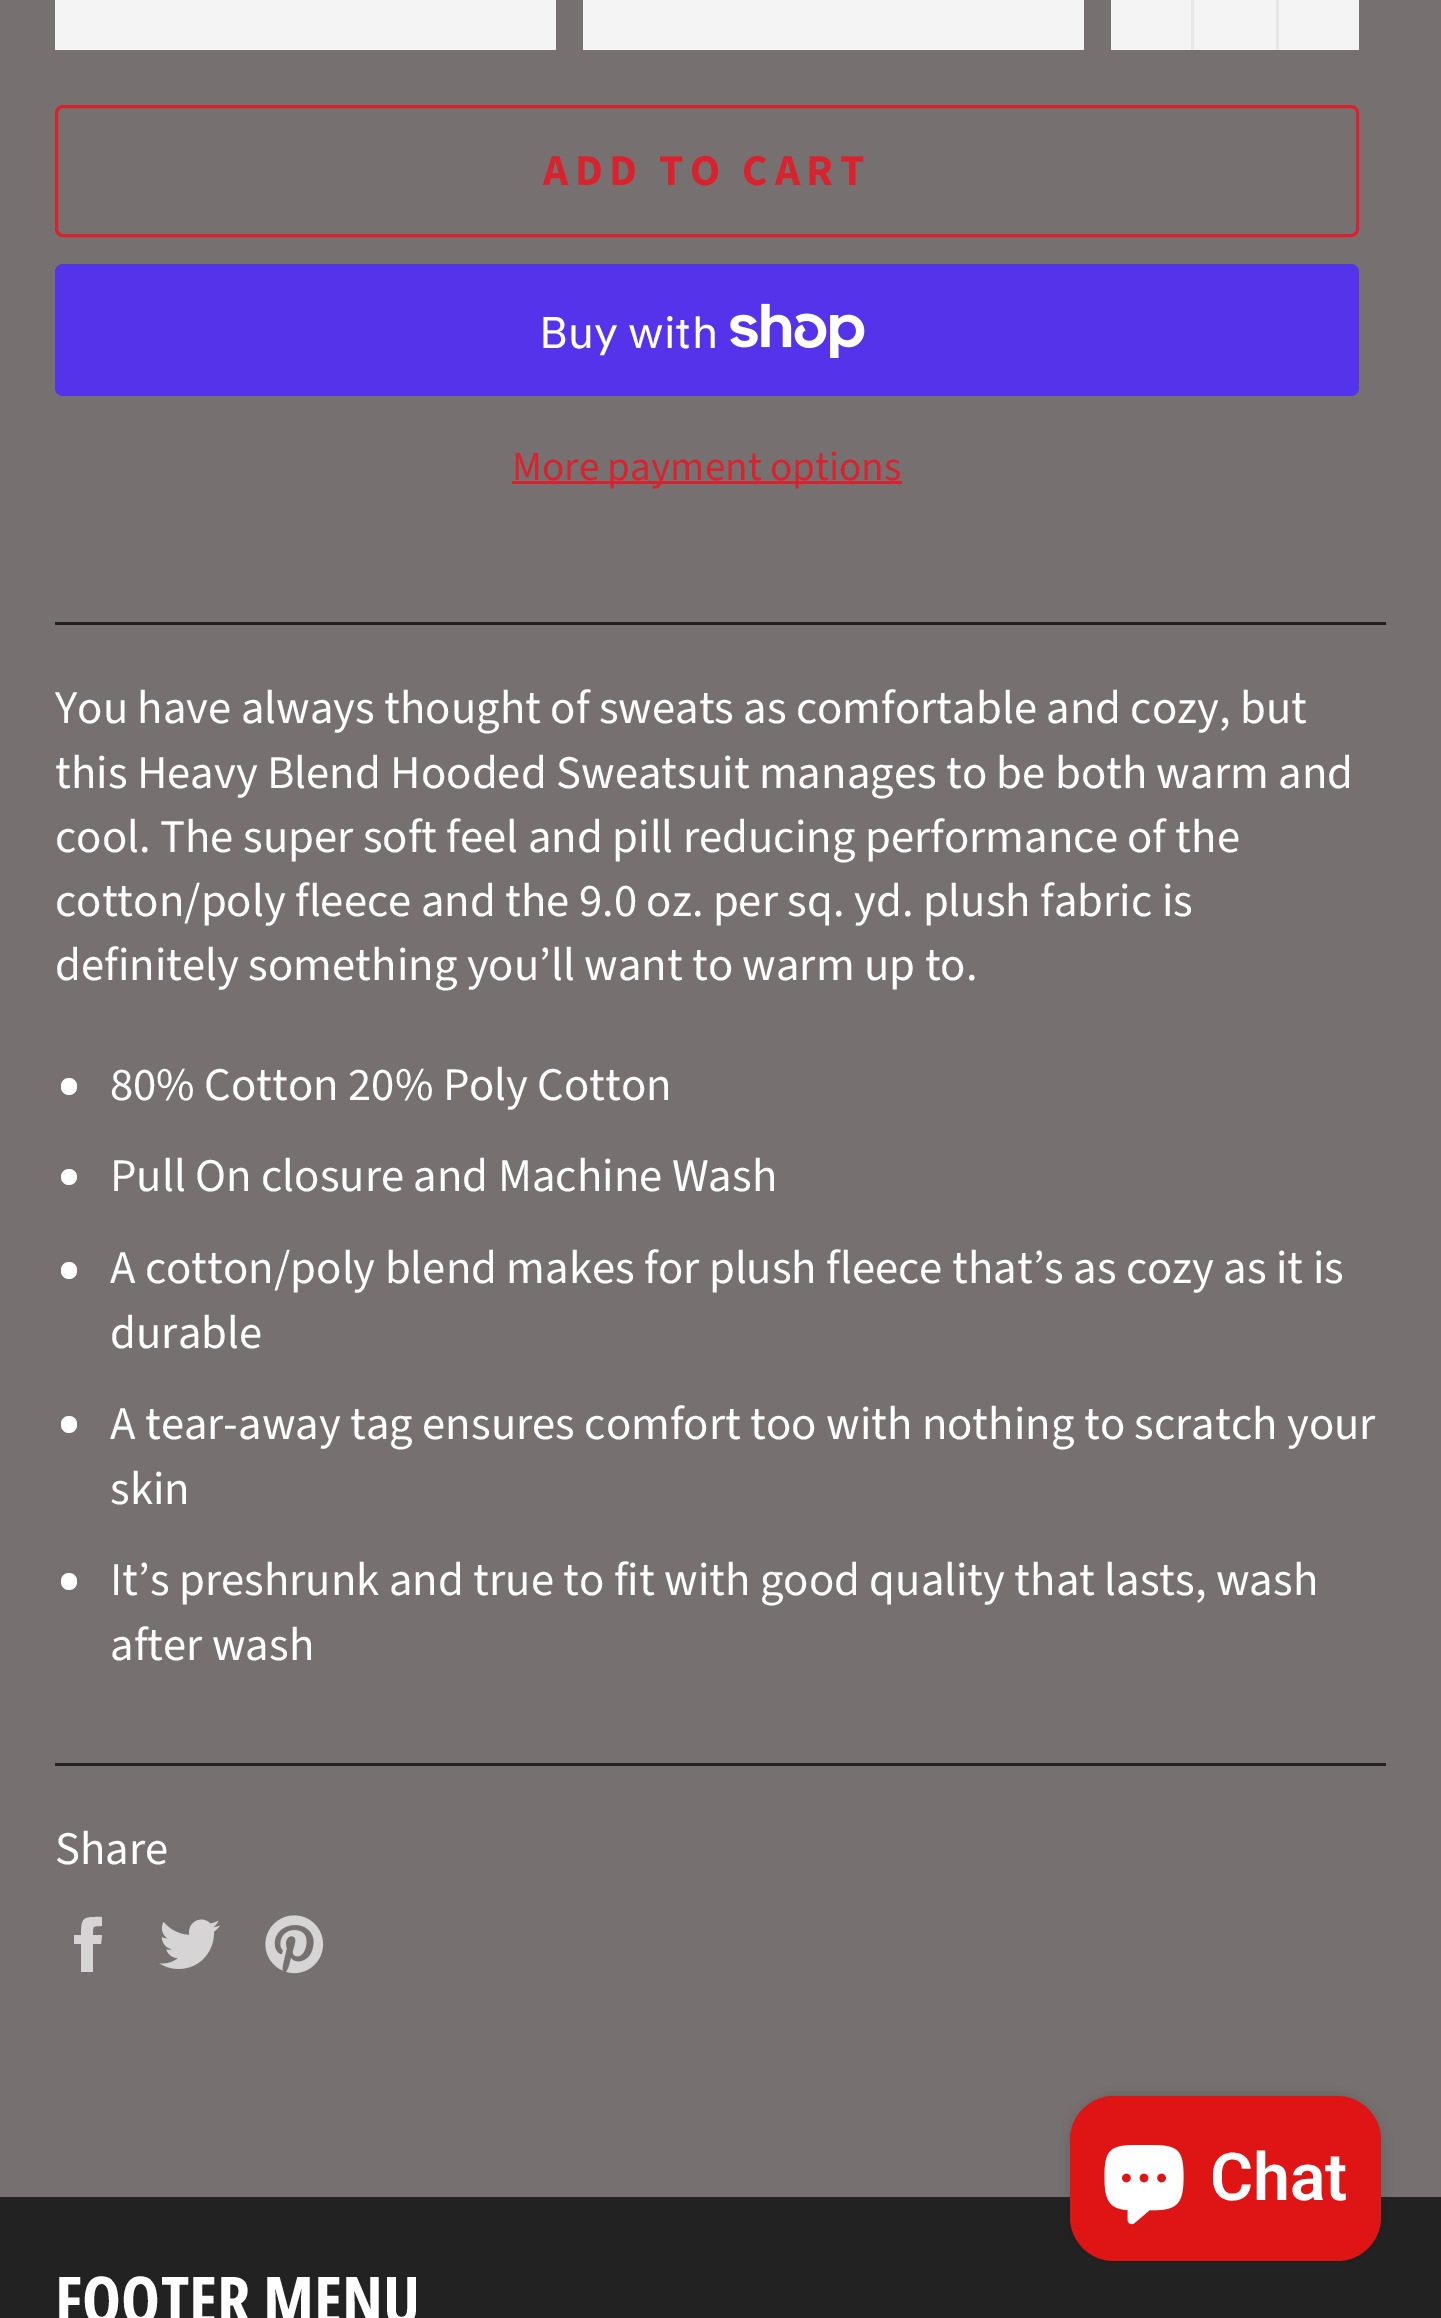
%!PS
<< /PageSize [1441 2318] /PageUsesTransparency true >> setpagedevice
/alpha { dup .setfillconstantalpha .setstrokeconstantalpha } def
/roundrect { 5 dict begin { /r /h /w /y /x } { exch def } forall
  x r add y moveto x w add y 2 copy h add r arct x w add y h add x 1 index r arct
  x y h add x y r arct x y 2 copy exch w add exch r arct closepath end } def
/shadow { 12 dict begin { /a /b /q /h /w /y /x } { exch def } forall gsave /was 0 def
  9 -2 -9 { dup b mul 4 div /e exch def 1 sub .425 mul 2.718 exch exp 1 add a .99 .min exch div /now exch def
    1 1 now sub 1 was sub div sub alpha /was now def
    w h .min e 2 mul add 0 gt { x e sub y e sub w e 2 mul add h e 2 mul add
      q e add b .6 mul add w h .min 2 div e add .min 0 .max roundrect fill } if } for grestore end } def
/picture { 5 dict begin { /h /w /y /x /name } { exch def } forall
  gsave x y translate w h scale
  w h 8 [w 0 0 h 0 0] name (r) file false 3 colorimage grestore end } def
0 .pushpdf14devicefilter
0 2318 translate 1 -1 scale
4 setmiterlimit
0.467 0.439 0.439 setrgbcolor
0 0 1441 2318 rectfill
0.957 setgray
55 0 501 50 rectfill
583 0 501 50 rectfill
1111 0 248 50 rectfill
0.906 setgray
1191 0 3 50 rectfill
1276 0 3 50 rectfill
0.847 0.137 0.184 setrgbcolor
3 setlinewidth
56.5 106.5 1301 129 6.5 roundrect stroke
/SourceSansPro-Bold [44 0 0 -44 0 0] selectfont
543 185 moveto 6.6 0 (ADD TO CART) ashow
0.329 0.2 0.922 setrgbcolor
55 264 1304 132 8 roundrect fill
/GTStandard-Regular [44 0 0 -44 0 0] selectfont
1 setgray
539 348 moveto (Buy with) show
(img1.rgb) 730 303 135 55 picture
0.847 0.137 0.184 setrgbcolor
512 481 390 3 rectfill
/SourceSansPro-Regular [41.25 0 0 -41.25 0 0] selectfont
512 480 moveto (More payment options) show
0.133 setgray
55 622 1331 3 rectfill
/SourceSansPro-Regular [46.75 0 0 -46.75 0 0] selectfont
1 setgray
55 723 moveto (You have always thought of sweats as comfortable and cozy, but) show
55 788 moveto (this Heavy Blend Hooded Sweatsuit manages to be both warm and) show
55 852 moveto (cool. The super soft feel and pill reducing performance of the) show
55 916 moveto (cotton/poly fleece and the 9.0 oz. per sq. yd. plush fabric is) show
55 980 moveto (definitely something you’ll want to warm up to.) show
61 1078 16 17 8 roundrect fill
110 1100 moveto (80% Cotton 20% Poly Cotton) show
newpath 69 1177 8 0 360 arc closepath fill
110 1191 moveto (Pull On closure and Machine Wash) show
61 1262 16 17 8 roundrect fill
110 1283 moveto (A cotton/poly blend makes for plush fleece that’s as cozy as it is) show
110 1348 moveto (durable) show
61 1416 16 17 8 roundrect fill
110 1439 moveto (A tear-away tag ensures comfort too with nothing to scratch your) show
110 1504 moveto (skin) show
61 1573 16 17 8 roundrect fill
110 1595 moveto (It’s preshrunk and true to fit with good quality that lasts, wash) show
110 1660 moveto (after wash) show
0.133 setgray
55 1763 1331 3 rectfill
1 setgray
55 1864 moveto (Share) show
0.839 0.831 0.831 setrgbcolor
newpath 93 1935 moveto 93 1926 92 1926 102 1926 curveto 102 1917 lineto 84 1917 81 1916 81 1935 curveto 74 1935 lineto 74 1944 lineto 81 1944 lineto 81 1972 lineto 93 1972 lineto 93 1944 lineto 101 1944 lineto 102 1935 lineto closepath fill
(img2.rgb) 159 1919 61 50 picture
(img3.rgb) 265 1915 59 59 picture
0.133 setgray
0 2197 1441 121 rectfill
/OpenSansCondensed-Bold [66 0 0 -66 0 0] selectfont
1 setgray
55 2324 moveto (FOOTER MENU) show
0 setgray
1070 2096 311 165 44 7 0.15 shadow
0.875 0.082 0.082 setrgbcolor
1070 2096 311 165 44 roundrect fill
(img4.rgb) 1104 2145 80 80 picture
/Roboto-SemiBold [66 0 0 -66 0 0] selectfont
1 setgray
1210 2200 moveto (Chat) show
.poppdf14devicefilter showpage
